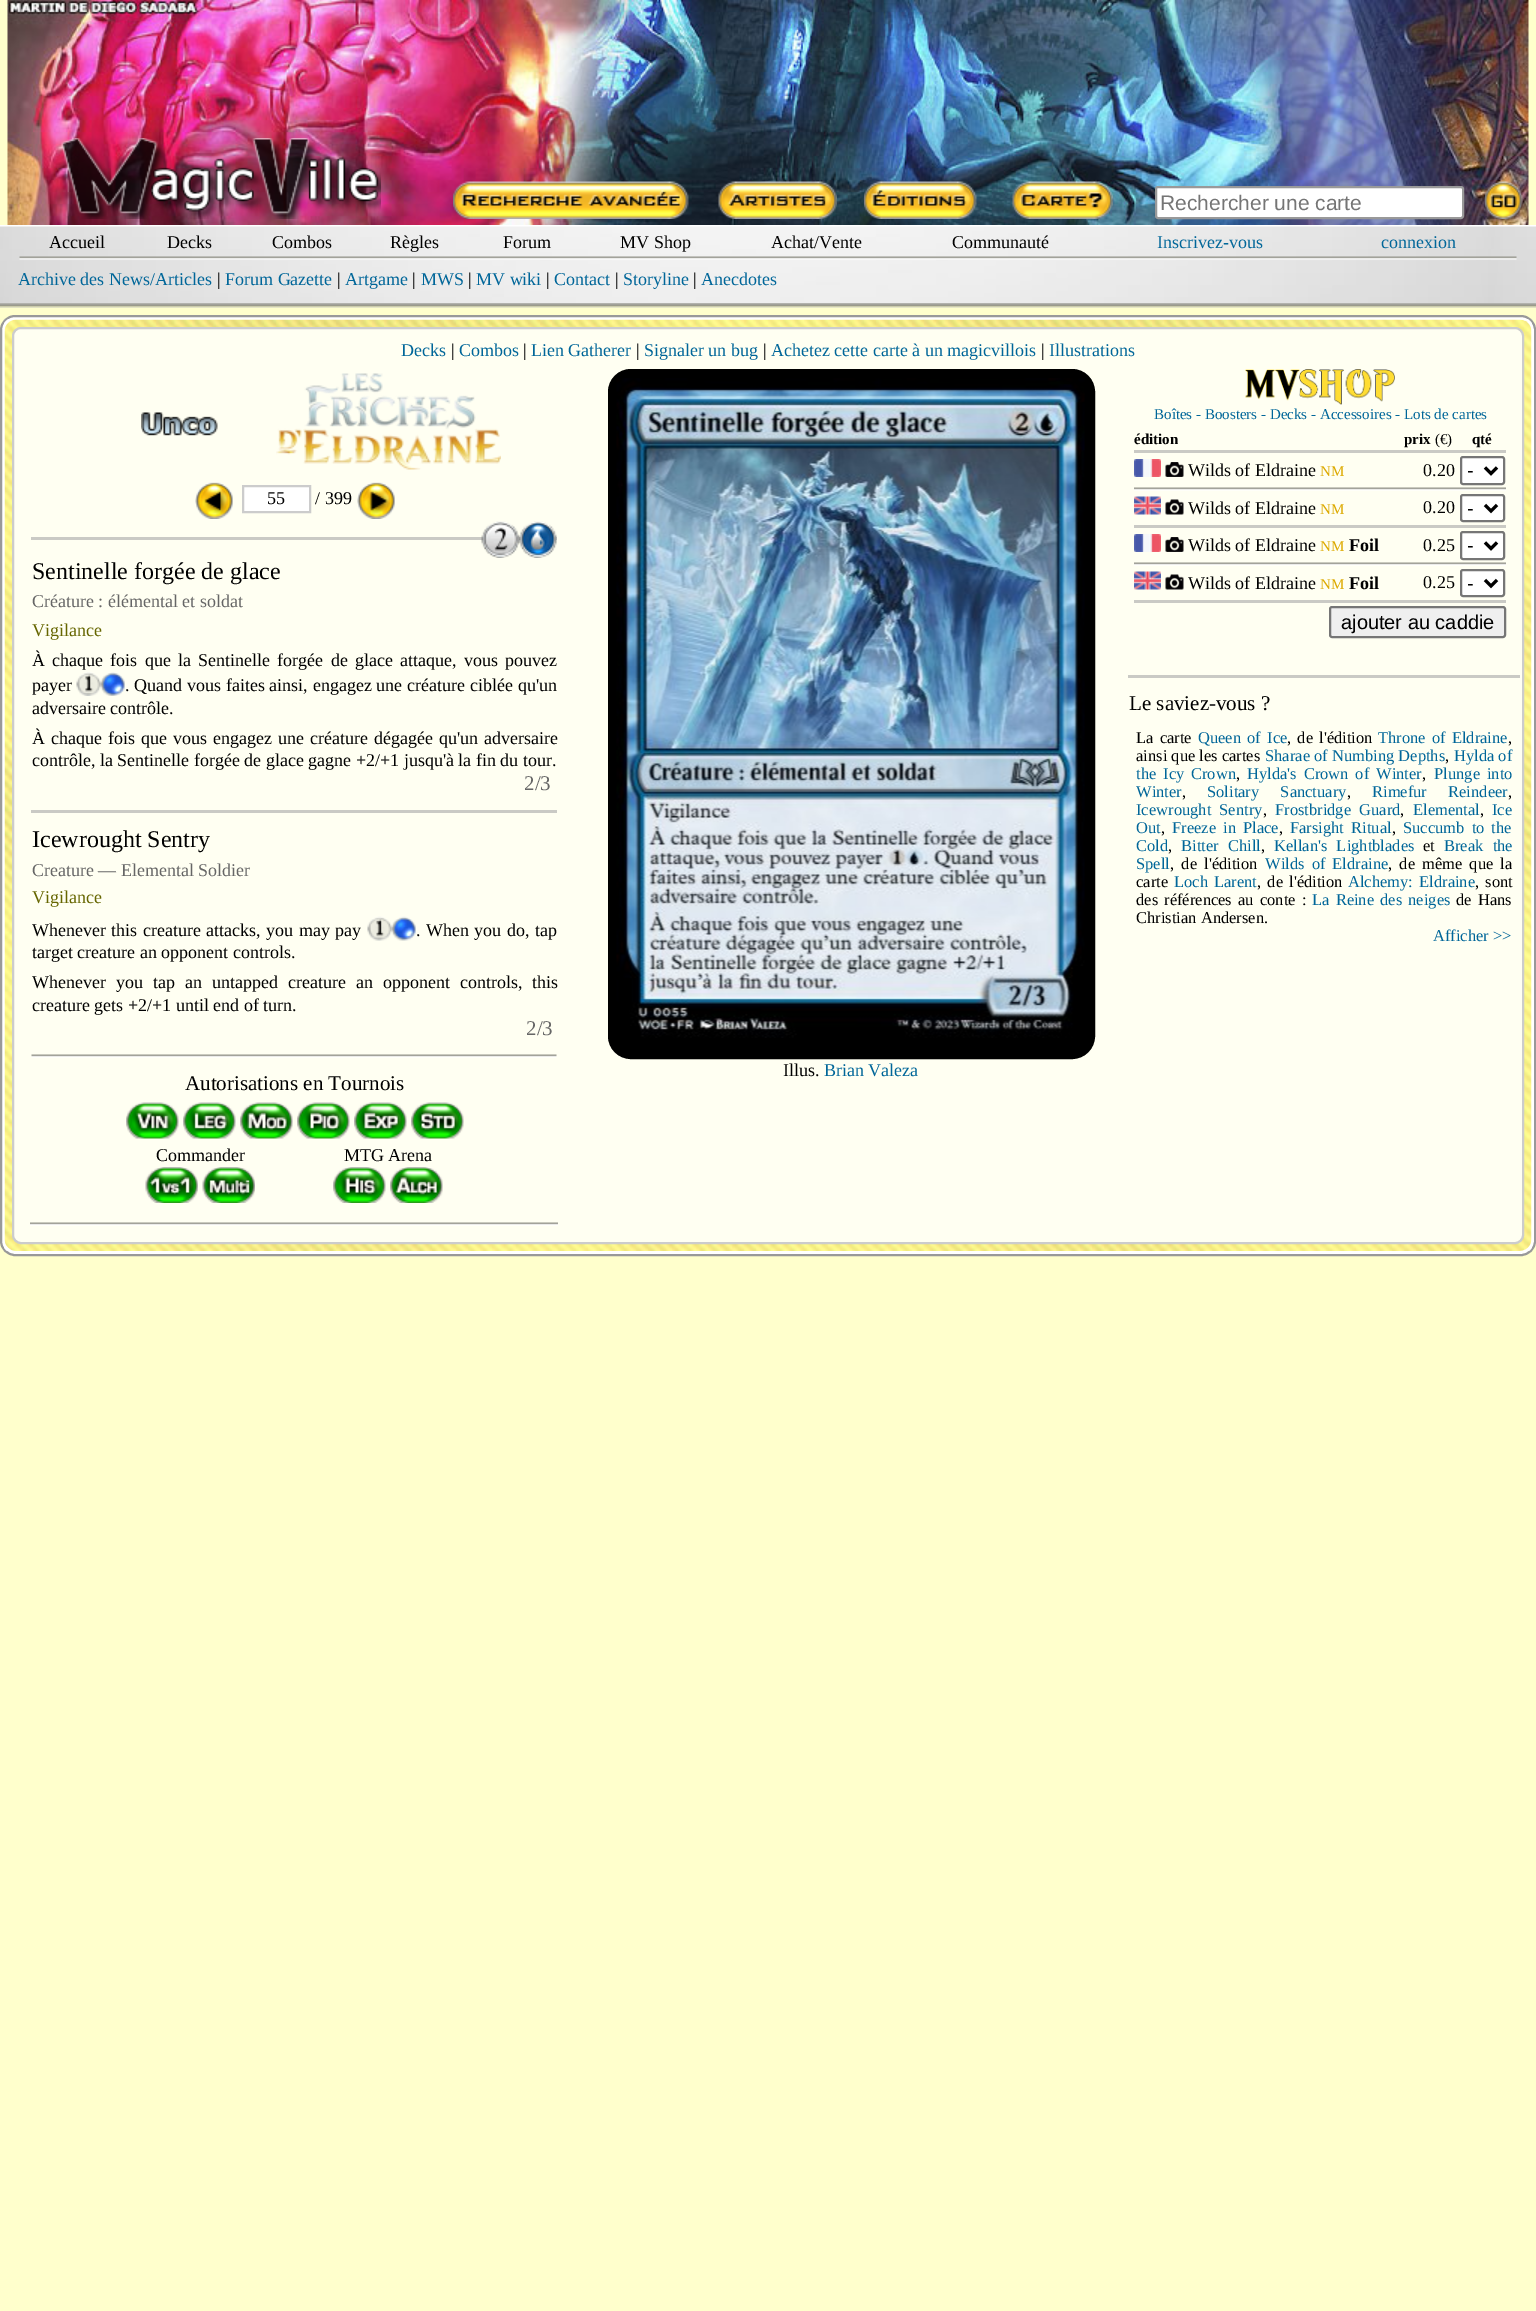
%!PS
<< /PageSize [1536 2311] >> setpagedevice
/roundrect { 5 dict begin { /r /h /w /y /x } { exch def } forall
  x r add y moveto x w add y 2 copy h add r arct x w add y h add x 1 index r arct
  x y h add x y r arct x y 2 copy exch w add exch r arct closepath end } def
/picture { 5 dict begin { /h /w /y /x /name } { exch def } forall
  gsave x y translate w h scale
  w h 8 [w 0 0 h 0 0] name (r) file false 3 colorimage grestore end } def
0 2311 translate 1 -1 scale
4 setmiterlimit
1 1 0.8 setrgbcolor
0 0 1536 2311 rectfill
(img1.rgb) 7 0 1522 225 picture
(img2.rgb) 61 138 320 81 picture
(img3.rgb) 453 181 236 38 picture
(img4.rgb) 718 181 119 38 picture
(img5.rgb) 864 181 113 38 picture
(img6.rgb) 1012 181 101 38 picture
1 setgray
1156 187 307 31 2 roundrect gsave fill grestore
0.6 setgray
2 setlinewidth
stroke
/LiberationSans-Regular [21 0 0 -21 0 0] selectfont
0.459 setgray
1160 210 moveto (Rechercher une carte) show
(img7.rgb) 1485 181 38 38 picture
(img8.rgb) 0 226 1536 82 picture
(img9.rgb) 0 225 1536 2 picture
(img10.rgb) 0 303 1536 5 picture
/LiberationSerif-Regular [18 0 0 -18 0 0] selectfont
0 setgray
49 248 moveto (Accueil) show
167 248 moveto (Decks) show
272 248 moveto (Combos) show
390 248 moveto (Règles) show
503 248 moveto (Forum) show
620 248 moveto (MV Shop) show
771 248 moveto (Achat/Vente) show
952 248 moveto (Communauté) show
0 0.4 0.6 setrgbcolor
1157 248 moveto (Inscrivez-vous) show
1381 248 moveto (connexion) show
(img11.rgb) 19 256 1498 4 picture
18 285 moveto (Archive des News/Articles) show
0 setgray
217 285 moveto (|) show
0 0.4 0.6 setrgbcolor
225 285 moveto (Forum Gazette) show
0 setgray
337 285 moveto (|) show
0 0.4 0.6 setrgbcolor
345 285 moveto (Artgame) show
0 setgray
412 285 moveto (|) show
0 0.4 0.6 setrgbcolor
421 285 moveto (MWS) show
0 setgray
468 285 moveto (|) show
0 0.4 0.6 setrgbcolor
476 285 moveto (MV wiki) show
0 setgray
546 285 moveto (|) show
0 0.4 0.6 setrgbcolor
554 285 moveto (Contact) show
0 setgray
615 285 moveto (|) show
0 0.4 0.6 setrgbcolor
623 285 moveto (Storyline) show
0 setgray
693 285 moveto (|) show
0 0.4 0.6 setrgbcolor
701 285 moveto (Anecdotes) show
1 setgray
1 316 1534 939 14 roundrect gsave fill grestore
0.6 setgray
stroke
(img12.rgb) 4 319 1528 932 picture
1 1 0.949 setrgbcolor
13 328 1510 915 8 roundrect gsave fill grestore
0.8 setgray
stroke
0 0.4 0.6 setrgbcolor
401 356 moveto (Decks) show
0 setgray
451 356 moveto (|) show
0 0.4 0.6 setrgbcolor
459 356 moveto (Combos) show
0 setgray
523 356 moveto (|) show
0 0.4 0.6 setrgbcolor
531 356 moveto (Lien Gatherer) show
0 setgray
636 356 moveto (|) show
0 0.4 0.6 setrgbcolor
644 356 moveto (Signaler un bug) show
0 setgray
763 356 moveto (|) show
0 0.4 0.6 setrgbcolor
771 356 moveto (Achetez cette carte à un magicvillois) show
0 setgray
1041 356 moveto (|) show
0 0.4 0.6 setrgbcolor
1049 356 moveto (Illustrations) show
(img13.rgb) 141 412 77 24 picture
(img14.rgb) 276 373 225 97 picture
(img15.rgb) 195 482 38 37 picture
1 setgray
newpath 243 486 moveto 310 486 lineto 310 512 lineto 243 512 lineto closepath gsave fill grestore
0.8 setgray
stroke
0 setgray
267 504 moveto (55) show
315 504 moveto (/ 399) show
(img16.rgb) 357 482 38 37 picture
0.792 0.792 0.773 setrgbcolor
31 537 526 3 rectfill
(img17.rgb) 481 521 38 37 picture
(img18.rgb) 519 521 38 37 picture
/LiberationSerif-Regular [24 0 0 -24 0 0] selectfont
0 setgray
32 579 moveto (Sentinelle forgée de glace) show
/LiberationSerif-Regular [18 0 0 -18 0 0] selectfont
0.4 setgray
32 607 moveto (Créature : élémental et soldat) show
0.4 0.4 0 setrgbcolor
32 636 moveto (Vigilance) show
0 setgray
32 666 moveto 2.75 0 32 (À chaque fois que la Sentinelle forgée de glace attaque, vous pouvez) widthshow
32 691 moveto (payer) show
(img19.rgb) 76 672 25 24 picture
(img20.rgb) 100 672 25 24 picture
125 691 moveto 0.25 0 32 (. Quand vous faites ainsi, engagez une créature ciblée qu'un) widthshow
32 714 moveto (adversaire contrôle.) show
32 744 moveto 1.5 0 32 (À chaque fois que vous engagez une créature dégagée qu'un adversaire) widthshow
32 766 moveto (contrôle, la Sentinelle forgée de glace gagne +2/+1 jusqu'à la fin du tour.) show
/LiberationSerif-Regular [21 0 0 -21 0 0] selectfont
0.4 setgray
524 790 moveto (2/3) show
0.792 0.792 0.773 setrgbcolor
31 810 526 3 rectfill
/LiberationSerif-Regular [24 0 0 -24 0 0] selectfont
0 setgray
32 847 moveto (Icewrought Sentry) show
/LiberationSerif-Regular [18 0 0 -18 0 0] selectfont
0.4 setgray
32 876 moveto (Creature — Elemental Soldier) show
0.4 0.4 0 setrgbcolor
32 903 moveto (Vigilance) show
0 setgray
32 936 moveto 1 0 32 (Whenever this creature attacks, you may pay) widthshow
(img21.rgb) 367 916 25 25 picture
(img22.rgb) 391 916 25 25 picture
416 936 moveto 1 0 32 (. When you do, tap) widthshow
32 958 moveto (target creature an opponent controls.) show
32 988 moveto 5.5 0 32 (Whenever you tap an untapped creature an opponent controls, this) widthshow
32 1011 moveto (creature gets +2/+1 until end of turn.) show
/LiberationSerif-Regular [21 0 0 -21 0 0] selectfont
0.4 setgray
526 1035 moveto (2/3) show
(img23.rgb) 31 1054 526 4 picture
0 setgray
185 1090 moveto (Autorisations en Tournois) show
(img24.rgb) 126 1102 53 37 picture
(img25.rgb) 183 1102 53 37 picture
(img26.rgb) 240 1102 53 37 picture
(img27.rgb) 297 1102 53 37 picture
(img28.rgb) 354 1102 53 37 picture
(img29.rgb) 411 1102 53 37 picture
/LiberationSerif-Regular [18 0 0 -18 0 0] selectfont
156 1161 moveto (Commander) show
(img30.rgb) 145 1167 53 36 picture
(img31.rgb) 202 1167 53 36 picture
344 1161 moveto (MTG Arena) show
(img32.rgb) 333 1167 53 36 picture
(img33.rgb) 390 1167 53 36 picture
(img34.rgb) 30 1222 528 4 picture
609 370 485 688 22 roundrect gsave fill grestore
stroke
(img35.rgb) 616 378 469 660 picture
783 1076 moveto (Illus.) show
0 0.4 0.6 setrgbcolor
824 1076 moveto (Brian Valeza) show
(img36.rgb) 1245 369 150 36 picture
/LiberationSerif-Regular [15 0 0 -15 0 0] selectfont
1154 419 moveto (Boîtes - Boosters - Decks - Accessoires - Lots de cartes) show
/LiberationSerif-Bold [15 0 0 -15 0 0] selectfont
0 setgray
1134 444 moveto (édition) show
1404 444 moveto (prix) show
/LiberationSerif-Regular [15 0 0 -15 0 0] selectfont
1435 444 moveto (\(€\)) show
/LiberationSerif-Bold [15 0 0 -15 0 0] selectfont
1472 444 moveto (qté) show
0.792 0.792 0.773 setrgbcolor
1134 450 372 3 rectfill
(img37.rgb) 1134 459 27 18 picture
(img38.rgb) 1165 462 19 15 picture
/LiberationSerif-Regular [18 0 0 -18 0 0] selectfont
0 setgray
1188 476 moveto (Wilds of Eldraine) show
/LiberationSerif-Regular [15 0 0 -15 0 0] selectfont
0.867 0.667 0 setrgbcolor
1320 476 moveto (NM) show
/LiberationSerif-Regular [18 0 0 -18 0 0] selectfont
0 setgray
1423 476 moveto (0.20) show
1 setgray
1461 457 43 27 2 roundrect gsave fill grestore
0.463 setgray
stroke
0 setgray
3 setlinewidth
newpath 1485 467.5 moveto 1491 473.5 lineto 1497 467.5 lineto stroke
/LiberationSans-Regular [20 0 0 -20 0 0] selectfont
1467 477 moveto (-) show
(img39.rgb) 1134 487 372 4 picture
(img40.rgb) 1134 496 27 19 picture
(img41.rgb) 1165 499 19 16 picture
/LiberationSerif-Regular [18 0 0 -18 0 0] selectfont
1188 514 moveto (Wilds of Eldraine) show
/LiberationSerif-Regular [15 0 0 -15 0 0] selectfont
0.867 0.667 0 setrgbcolor
1320 514 moveto (NM) show
/LiberationSerif-Regular [18 0 0 -18 0 0] selectfont
0 setgray
1423 513 moveto (0.20) show
1 setgray
1461 495 43 26 2 roundrect gsave fill grestore
0.463 setgray
2 setlinewidth
stroke
0 setgray
3 setlinewidth
newpath 1485 505 moveto 1491 511 lineto 1497 505 lineto stroke
/LiberationSans-Regular [20 0 0 -20 0 0] selectfont
1467 515 moveto (-) show
0.792 0.792 0.773 setrgbcolor
1134 525 372 3 rectfill
(img37.rgb) 1134 534 27 18 picture
(img38.rgb) 1165 537 19 15 picture
/LiberationSerif-Regular [18 0 0 -18 0 0] selectfont
0 setgray
1188 551 moveto (Wilds of Eldraine) show
/LiberationSerif-Regular [15 0 0 -15 0 0] selectfont
0.867 0.667 0 setrgbcolor
1320 551 moveto (NM) show
/LiberationSerif-Bold [18 0 0 -18 0 0] selectfont
0 setgray
1349 551 moveto (Foil) show
/LiberationSerif-Regular [18 0 0 -18 0 0] selectfont
1423 551 moveto (0.25) show
1 setgray
1461 532 43 27 2 roundrect gsave fill grestore
0.463 setgray
2 setlinewidth
stroke
0 setgray
3 setlinewidth
newpath 1485 542.5 moveto 1491 548.5 lineto 1497 542.5 lineto stroke
/LiberationSans-Regular [20 0 0 -20 0 0] selectfont
1467 552 moveto (-) show
(img39.rgb) 1134 562 372 4 picture
(img40.rgb) 1134 571 27 19 picture
(img41.rgb) 1165 574 19 16 picture
/LiberationSerif-Regular [18 0 0 -18 0 0] selectfont
1188 589 moveto (Wilds of Eldraine) show
/LiberationSerif-Regular [15 0 0 -15 0 0] selectfont
0.867 0.667 0 setrgbcolor
1320 589 moveto (NM) show
/LiberationSerif-Bold [18 0 0 -18 0 0] selectfont
0 setgray
1349 589 moveto (Foil) show
/LiberationSerif-Regular [18 0 0 -18 0 0] selectfont
1423 588 moveto (0.25) show
1 setgray
1461 570 43 26 2 roundrect gsave fill grestore
0.463 setgray
2 setlinewidth
stroke
0 setgray
3 setlinewidth
newpath 1485 580 moveto 1491 586 lineto 1497 580 lineto stroke
/LiberationSans-Regular [20 0 0 -20 0 0] selectfont
1467 590 moveto (-) show
0.792 0.792 0.773 setrgbcolor
1134 600 372 3 rectfill
0.937 setgray
1330 607 175 30 2 roundrect gsave fill grestore
0.463 setgray
2 setlinewidth
stroke
0 setgray
1341 629 moveto (ajouter au caddie) show
0.792 0.792 0.773 setrgbcolor
1128 675 392 3 rectfill
/LiberationSerif-Regular [21 0 0 -21 0 0] selectfont
0 setgray
1129 710 moveto (Le saviez-vous ?) show
/LiberationSerif-Regular [16.5 0 0 -16.5 0 0] selectfont
1136 743 moveto 2 0 32 (La carte) widthshow
0 0.4 0.6 setrgbcolor
1198 743 moveto 2 0 32 (Queen of Ice) widthshow
0 setgray
1287 743 moveto 2 0 32 (, de l'édition) widthshow
0 0.4 0.6 setrgbcolor
1378 743 moveto 2 0 32 (Throne of Eldraine) widthshow
0 setgray
1508 743 moveto (,) show
1136 761 moveto (ainsi que les cartes) show
0 0.4 0.6 setrgbcolor
1265 761 moveto (Sharae of Numbing Depths) show
0 setgray
1445 761 moveto (,) show
0 0.4 0.6 setrgbcolor
1454 761 moveto (Hylda of) show
1136 779 moveto 2.75 0 32 (the Icy Crown) widthshow
0 setgray
1236 779 moveto (,) show
0 0.4 0.6 setrgbcolor
1247 779 moveto 2.75 0 32 (Hylda's Crown of Winter) widthshow
0 setgray
1422 779 moveto (,) show
0 0.4 0.6 setrgbcolor
1434 779 moveto 2.75 0 32 (Plunge into) widthshow
1136 797 moveto (Winter) show
0 setgray
1182 797 moveto (,) show
0 0.4 0.6 setrgbcolor
1207 797 moveto 17 0 32 (Solitary Sanctuary) widthshow
0 setgray
1347 797 moveto (,) show
0 0.4 0.6 setrgbcolor
1372 797 moveto 17 0 32 (Rimefur Reindeer) widthshow
0 setgray
1508 797 moveto (,) show
0 0.4 0.6 setrgbcolor
1136 815 moveto 4 0 32 (Icewrought Sentry) widthshow
0 setgray
1263 815 moveto (,) show
0 0.4 0.6 setrgbcolor
1275 815 moveto 4 0 32 (Frostbridge Guard) widthshow
0 setgray
1400 815 moveto (,) show
0 0.4 0.6 setrgbcolor
1413 815 moveto (Elemental) show
0 setgray
1480 815 moveto (,) show
0 0.4 0.6 setrgbcolor
1492 815 moveto (Ice) show
1136 833 moveto (Out) show
0 setgray
1161 833 moveto (,) show
0 0.4 0.6 setrgbcolor
1172 833 moveto 3 0 32 (Freeze in Place) widthshow
0 setgray
1279 833 moveto (,) show
0 0.4 0.6 setrgbcolor
1290 833 moveto 3 0 32 (Farsight Ritual) widthshow
0 setgray
1392 833 moveto (,) show
0 0.4 0.6 setrgbcolor
1403 833 moveto 3 0 32 (Succumb to the) widthshow
1136 851 moveto (Cold) show
0 setgray
1168 851 moveto (,) show
0 0.4 0.6 setrgbcolor
1181 851 moveto 5 0 32 (Bitter Chill) widthshow
0 setgray
1261 851 moveto (,) show
0 0.4 0.6 setrgbcolor
1274 851 moveto 5 0 32 (Kellan's Lightblades) widthshow
0 setgray
1423 851 moveto (et) show
0 0.4 0.6 setrgbcolor
1444 851 moveto 5 0 32 (Break the) widthshow
1136 869 moveto (Spell) show
0 setgray
1170 869 moveto 3 0 32 (, de l'édition) widthshow
0 0.4 0.6 setrgbcolor
1265 869 moveto 3 0 32 (Wilds of Eldraine) widthshow
0 setgray
1388 869 moveto 3 0 32 (, de même que la) widthshow
1136 887 moveto (carte) show
0 0.4 0.6 setrgbcolor
1174 887 moveto 2 0 32 (Loch Larent) widthshow
0 setgray
1257 887 moveto 2 0 32 (, de l'édition) widthshow
0 0.4 0.6 setrgbcolor
1348 887 moveto 2 0 32 (Alchemy: Eldraine) widthshow
0 setgray
1475 887 moveto 2 0 32 (, sont) widthshow
1136 905 moveto 2 0 32 (des références au conte :) widthshow
0 0.4 0.6 setrgbcolor
1312 905 moveto 2 0 32 (La Reine des neiges) widthshow
0 setgray
1456 905 moveto 2 0 32 (de Hans) widthshow
1136 923 moveto (Christian Andersen.) show
0 0.4 0.6 setrgbcolor
1433 941 moveto (Afficher >>) show
showpage
